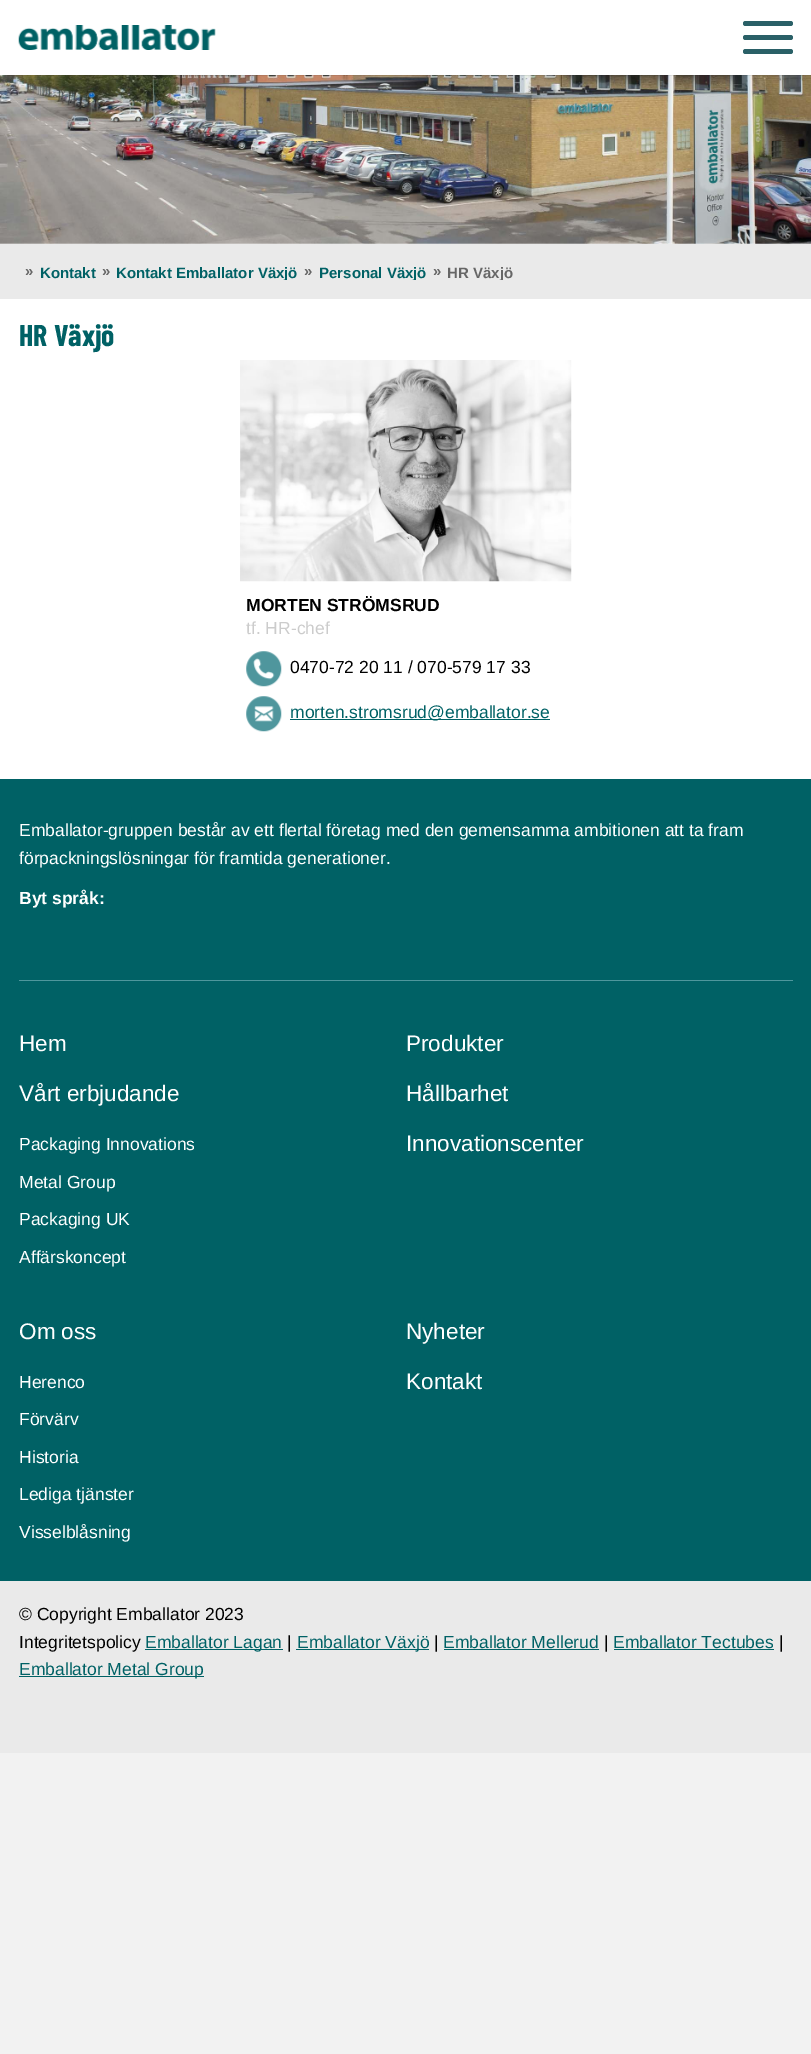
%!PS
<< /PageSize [811 2054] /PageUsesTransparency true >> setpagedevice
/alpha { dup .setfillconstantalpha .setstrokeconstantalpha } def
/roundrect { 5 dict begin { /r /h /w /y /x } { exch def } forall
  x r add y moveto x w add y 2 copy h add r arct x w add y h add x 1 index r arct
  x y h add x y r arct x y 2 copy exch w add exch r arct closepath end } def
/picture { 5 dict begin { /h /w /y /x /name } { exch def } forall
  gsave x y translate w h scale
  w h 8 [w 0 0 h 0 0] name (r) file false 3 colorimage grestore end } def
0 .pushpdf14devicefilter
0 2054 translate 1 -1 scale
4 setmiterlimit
0.949 setgray
0 0 811 2054 rectfill
1 setgray
0 0 811 75 rectfill
0 243 811 536 rectfill
(img2.rgb) 0 75 811 169 picture
0.08 alpha
0 setgray
0 75 811 1 rectfill
1 alpha
(img1.rgb) 18 25 198 25 picture
0.165 0.376 0.404 setrgbcolor
743 21 50 5 2.5 roundrect fill
743 35 50 5 2.5 roundrect fill
743 49 50 5 2.5 roundrect fill
0.918 setgray
0 244 811 55 rectfill
/LiberationSans-Bold [15 0 0 -15 0 0] selectfont
0.4 setgray
25 276 moveto (») show
0 0.38 0.396 setrgbcolor
40 278 moveto (Kontakt) show
0.4 setgray
102 276 moveto (») show
gsave
19 263 774 17 rectclip
0 0.38 0.396 setrgbcolor
116 278 moveto (Kontakt Emballator Växjö) show
grestore
304 276 moveto (») show
gsave
19 263 774 17 rectclip
0 0.38 0.396 setrgbcolor
319 278 moveto (Personal Växjö) show
grestore
433 276 moveto (») show
gsave
19 263 774 17 rectclip
447 278 moveto (HR Växjö) show
grestore
/BarlowCondensed-Bold [30 0 0 -30 0 0] selectfont
0 0.38 0.396 setrgbcolor
19 346 moveto (HR Växjö) show
(img3.rgb) 240 360 332 222 picture
/LiberationSans-Bold [17.5 0 0 -17.5 0 0] selectfont
0 setgray
246 611 moveto (MORTEN STRÖMSRUD) show
/LiberationSans-Regular [17.5 0 0 -17.5 0 0] selectfont
0.8 setgray
246 634 moveto (tf. HR-chef) show
(img4.rgb) 246 651 36 36 picture
0 setgray
290 673 moveto (0470-72 20 11 / 070-579 17 33) show
(img5.rgb) 246 696 36 36 picture
0 0.38 0.396 setrgbcolor
290 719 260 1 rectfill
290 718 moveto (morten.stromsrud@emballator.se) show
0 779 811 802 rectfill
0.31 0.592 0.616 setrgbcolor
19 980 774 1 rectfill
1 setgray
19 836 moveto (Emballator-gruppen består av ett flertal företag med den gemensamma ambitionen att ta fram) show
19 864 moveto (förpackningslösningar för framtida generationer.) show
/LiberationSans-Bold [17.5 0 0 -17.5 0 0] selectfont
19 904 moveto (Byt språk:) show
/LiberationSans-Regular [22.5 0 0 -22.5 0 0] selectfont
19 1051 moveto (Hem) show
19 1101 moveto (Vårt erbjudande) show
/LiberationSans-Regular [17.5 0 0 -17.5 0 0] selectfont
19 1150 moveto (Packaging Innovations) show
19 1188 moveto (Metal Group) show
19 1225 moveto (Packaging UK) show
19 1263 moveto (Affärskoncept) show
/LiberationSans-Regular [22.5 0 0 -22.5 0 0] selectfont
406 1051 moveto (Produkter) show
406 1101 moveto (Hållbarhet) show
406 1151 moveto (Innovationscenter) show
19 1339 moveto (Om oss) show
/LiberationSans-Regular [17.5 0 0 -17.5 0 0] selectfont
19 1388 moveto (Herenco) show
19 1425 moveto (Förvärv) show
19 1463 moveto (Historia) show
19 1500 moveto (Lediga tjänster) show
19 1538 moveto (Visselblåsning) show
/LiberationSans-Regular [22.5 0 0 -22.5 0 0] selectfont
406 1339 moveto (Nyheter) show
406 1389 moveto (Kontakt) show
0.918 setgray
0 1581 811 172 rectfill
/LiberationSans-Regular [17.5 0 0 -17.5 0 0] selectfont
0 setgray
19 1620 moveto (© Copyright Emballator 2023) show
19 1648 moveto (Integritetspolicy) show
0 0.38 0.396 setrgbcolor
145 1649 138 1 rectfill
145 1648 moveto (Emballator Lagan) show
0 setgray
287 1648 moveto (|) show
0 0.38 0.396 setrgbcolor
296 1649 133 1 rectfill
297 1648 moveto (Emballator Växjö) show
0 setgray
434 1648 moveto (|) show
0 0.38 0.396 setrgbcolor
443 1648 moveto (Emballator Mellerud) show
444 1649 155 1 rectfill
0 setgray
604 1648 moveto (|) show
0 0.38 0.396 setrgbcolor
613 1648 moveto (Emballator Tectubes) show
614 1649 160 1 rectfill
0 setgray
779 1648 moveto (|) show
0 0.38 0.396 setrgbcolor
19 1676 185 1 rectfill
19 1675 moveto (Emballator Metal Group) show
.poppdf14devicefilter showpage
